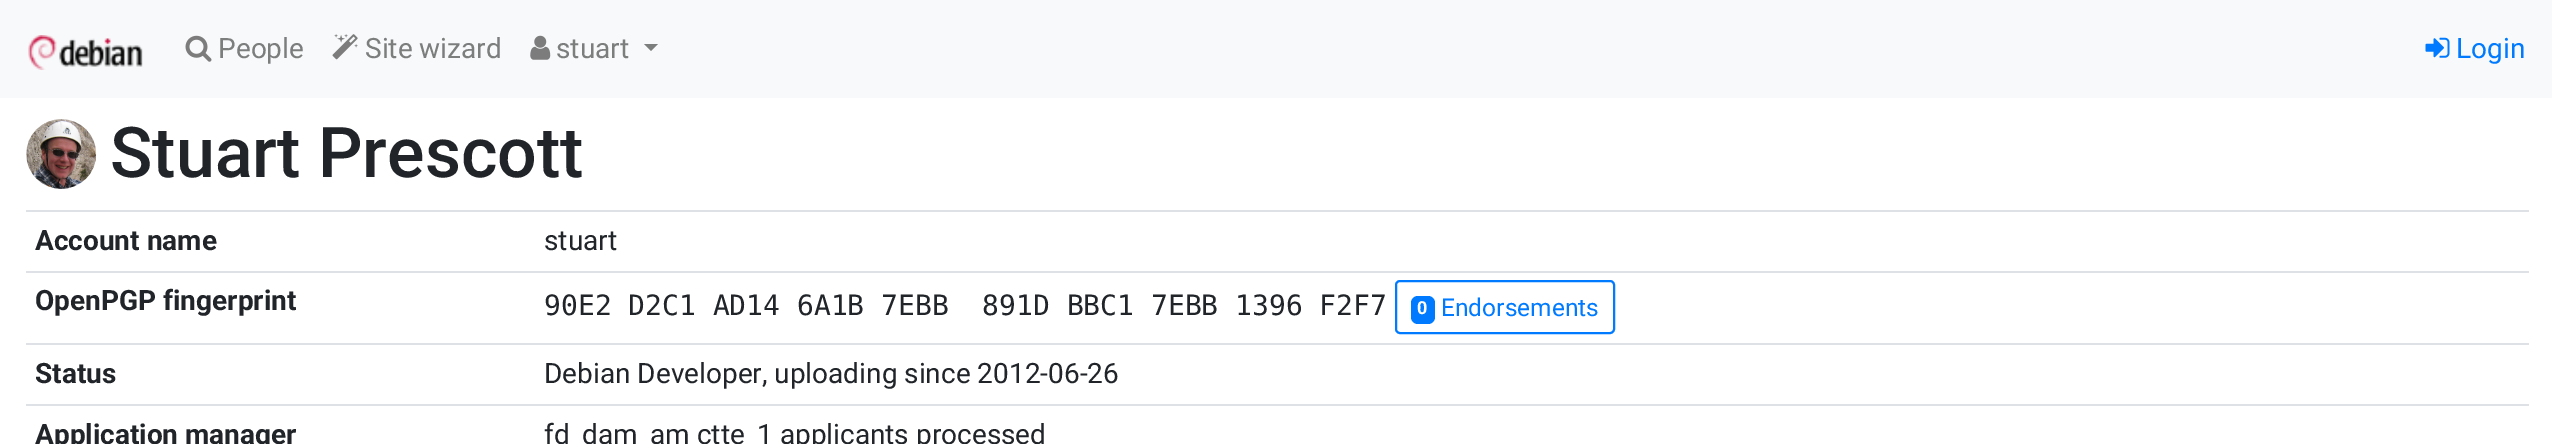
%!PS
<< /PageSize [2552 444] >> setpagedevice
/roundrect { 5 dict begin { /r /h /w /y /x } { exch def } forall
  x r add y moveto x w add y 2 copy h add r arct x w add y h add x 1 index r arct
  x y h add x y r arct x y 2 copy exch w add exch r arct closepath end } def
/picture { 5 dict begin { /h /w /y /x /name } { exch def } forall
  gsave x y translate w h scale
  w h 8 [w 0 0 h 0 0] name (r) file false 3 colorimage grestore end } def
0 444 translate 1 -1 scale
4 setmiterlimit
1 setgray
0 0 2552 444 rectfill
0.973 0.976 0.98 setrgbcolor
0 0 2552 98 rectfill
(img1.rgb) 28 35 115 35 picture
(img2.rgb) 185 35 27 27 picture
/Roboto-Regular [28 0 0 -28 0 0] selectfont
0.486 0.49 0.49 setrgbcolor
218 58 moveto (People) show
(img3.rgb) 332 34 26 26 picture
365 58 moveto (Site wizard) show
(img4.rgb) 530 35 21 25 picture
556 58 moveto (stuart) show
newpath 644 44 moveto 658 44 lineto 651 51 lineto closepath fill
(img5.rgb) 2425 37 25 21 picture
0 0.482 1 setrgbcolor
2456 58 moveto (Login) show
(img6.rgb) 26 119 71 70 picture
/Roboto-Medium [70 0 0 -70 0 0] selectfont
0.129 0.145 0.161 setrgbcolor
110 177 moveto (Stuart Prescott) show
/Roboto-Bold [28 0 0 -28 0 0] selectfont
35 250 moveto (Account name) show
0.871 0.886 0.902 setrgbcolor
26 210 2503 2 rectfill
/Roboto-Regular [28 0 0 -28 0 0] selectfont
0.129 0.145 0.161 setrgbcolor
544 250 moveto (stuart) show
/Roboto-Bold [28 0 0 -28 0 0] selectfont
35 310 moveto (OpenPGP fingerprint) show
0.871 0.886 0.902 setrgbcolor
26 271 2503 2 rectfill
/DejaVuSansMono-Regular [28 0 0 -28 0 0] selectfont
0.129 0.145 0.161 setrgbcolor
544 315 moveto (90E2 D2C1 AD14 6A1B 7EBB  891D BBC1 7EBB 1396 F2F7) show
0 0.482 1 setrgbcolor
2 setlinewidth
1396 281 218 52 4 roundrect stroke
1411 296 24 28 7 roundrect fill
/Roboto-Bold [18 0 0 -18 0 0] selectfont
1 setgray
1417 314 moveto (0) show
/Roboto-Regular [24.5 0 0 -24.5 0 0] selectfont
0 0.482 1 setrgbcolor
1441 316 moveto (Endorsements) show
/Roboto-Bold [28 0 0 -28 0 0] selectfont
0.129 0.145 0.161 setrgbcolor
35 383 moveto (Status) show
0.871 0.886 0.902 setrgbcolor
26 343 2503 2 rectfill
/Roboto-Regular [28 0 0 -28 0 0] selectfont
0.129 0.145 0.161 setrgbcolor
544 383 moveto (Debian Developer, uploading since 2012-06-26) show
/Roboto-Bold [28 0 0 -28 0 0] selectfont
35 444 moveto (Application manager) show
0.871 0.886 0.902 setrgbcolor
26 404 2503 2 rectfill
/Roboto-Regular [28 0 0 -28 0 0] selectfont
0.129 0.145 0.161 setrgbcolor
544 444 moveto (fd) show
582 444 moveto (dam) show
650 444 moveto (am ctte) show
757 444 moveto (1 applicants processed) show
showpage
